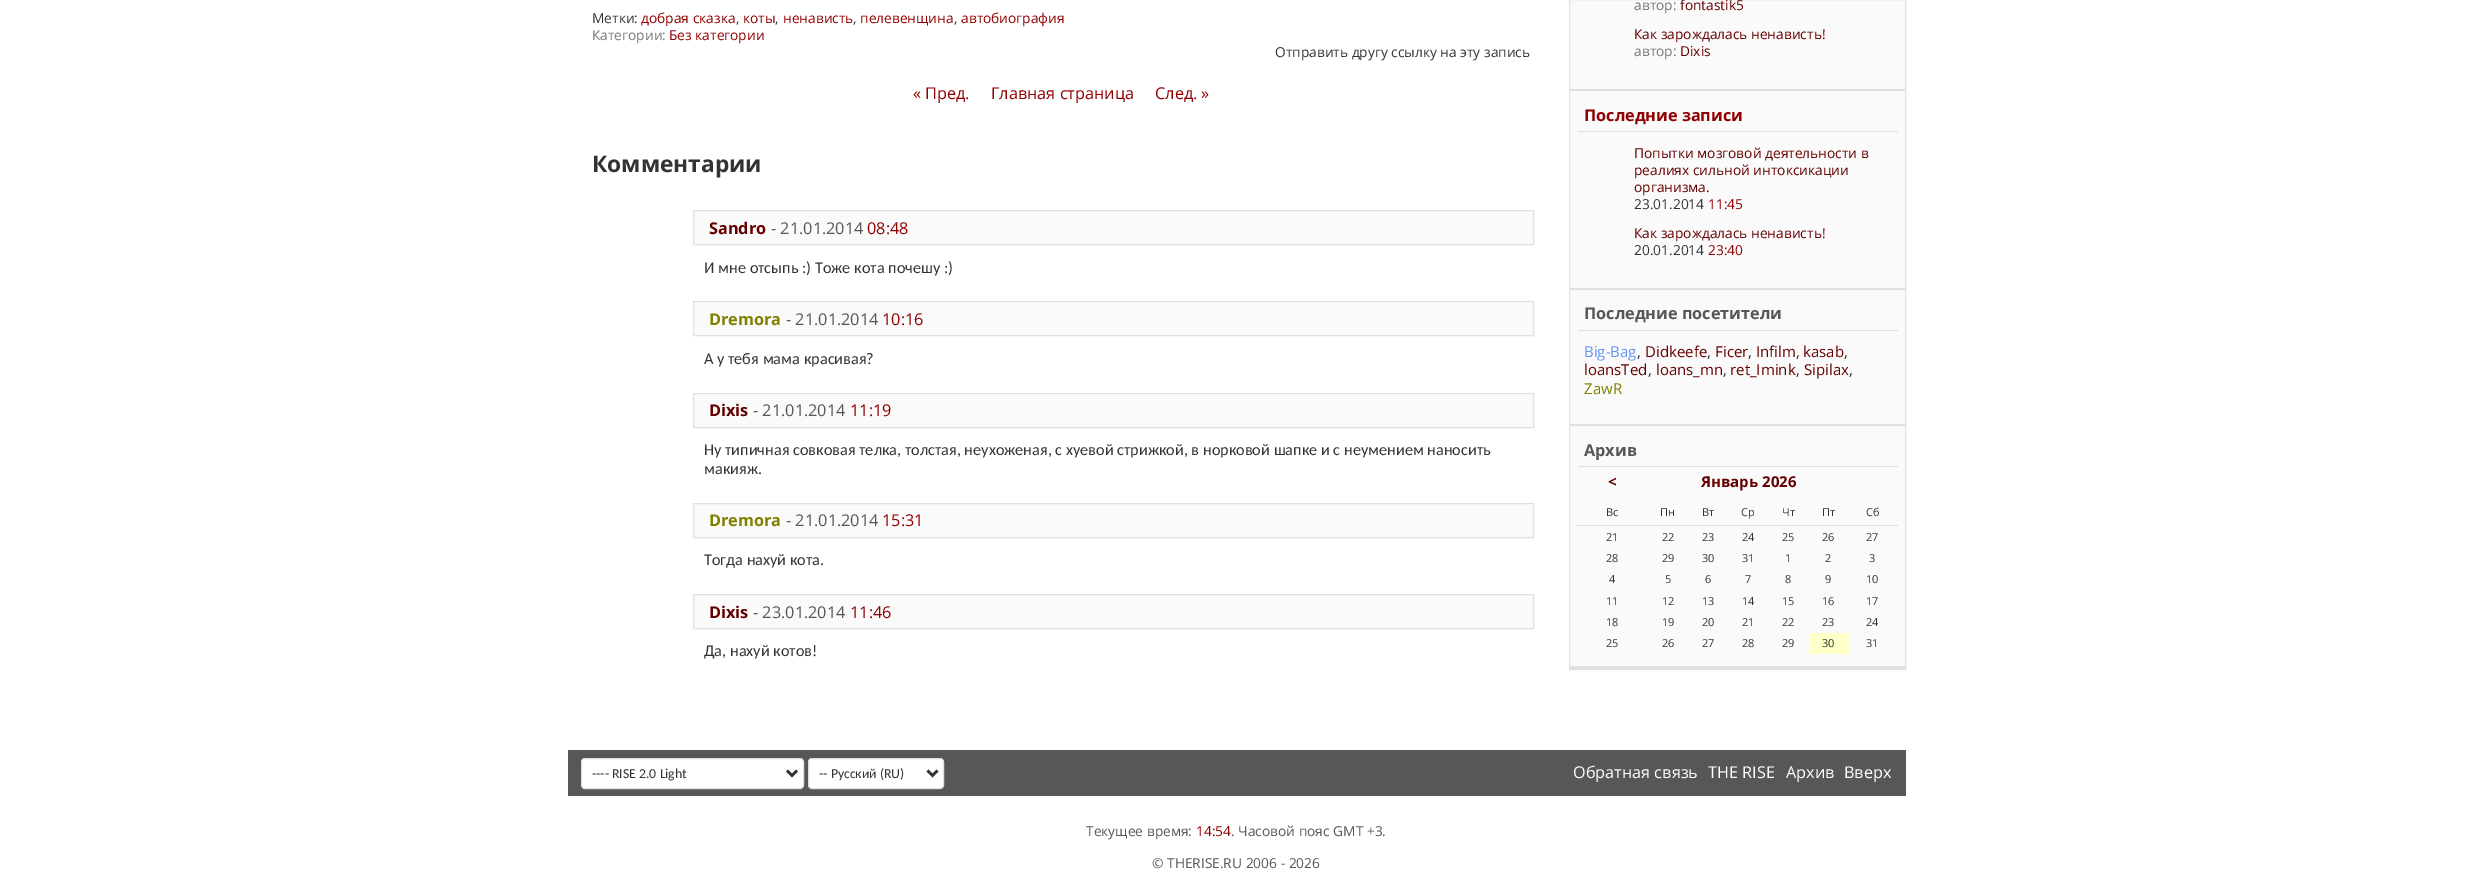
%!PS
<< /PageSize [2472 877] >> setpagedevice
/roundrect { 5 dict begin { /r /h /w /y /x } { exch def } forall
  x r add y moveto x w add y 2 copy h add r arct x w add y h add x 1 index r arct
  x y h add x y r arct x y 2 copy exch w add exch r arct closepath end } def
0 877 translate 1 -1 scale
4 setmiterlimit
1 setgray
0 0 2472 877 rectfill
/OpenSans-Regular [13.75 0 0 -13.75 0 0] selectfont
0.2 setgray
592 23 moveto (Метки:) show
0.565 0 0 setrgbcolor
641 23 moveto (добрая сказка) show
0.2 setgray
736 23 moveto (,) show
0.565 0 0 setrgbcolor
743 23 moveto (коты) show
0.2 setgray
775 23 moveto (,) show
0.565 0 0 setrgbcolor
783 23 moveto (ненависть) show
0.2 setgray
853 23 moveto (,) show
0.565 0 0 setrgbcolor
860 23 moveto (пелевенщина) show
0.2 setgray
954 23 moveto (,) show
0.565 0 0 setrgbcolor
961 23 moveto (автобиография) show
0.467 setgray
592 40 moveto (Категории:) show
0.565 0 0 setrgbcolor
669 40 moveto (Без категории) show
0.2 setgray
1275 57 moveto (Отправить другу ссылку на эту запись) show
/OpenSans-Regular [16.25 0 0 -16.25 0 0] selectfont
0.565 0 0 setrgbcolor
913 99 moveto (« Пред.) show
991 99 moveto (Главная страница) show
1155 99 moveto (След. ») show
/OpenSans-Bold [22.75 0 0 -22.75 0 0] selectfont
0.2 setgray
592 172 moveto (Комментарии) show
0.98 setgray
newpath 693.5 210.5 moveto 1533.5 210.5 lineto 1533.5 244.5 lineto 693.5 244.5 lineto closepath gsave fill grestore
0.878 setgray
stroke
/OpenSans-Bold [16.25 0 0 -16.25 0 0] selectfont
0.4 0 0 setrgbcolor
709 234 moveto (Sandro) show
/OpenSans-Regular [16.25 0 0 -16.25 0 0] selectfont
0.341 setgray
771 234 moveto (- 21.01.2014) show
0.565 0 0 setrgbcolor
867 234 moveto (08:48) show
/Carlito-Regular [16.25 0 0 -16.25 0 0] selectfont
0.2 setgray
704 273 moveto (И мне отсыпь :\) Тоже кота почешу :\)) show
0.98 setgray
newpath 693.5 301.5 moveto 1533.5 301.5 lineto 1533.5 335.5 lineto 693.5 335.5 lineto closepath gsave fill grestore
0.878 setgray
stroke
/OpenSans-Bold [16.25 0 0 -16.25 0 0] selectfont
0.502 0.502 0 setrgbcolor
709 325 moveto (Dremora) show
/OpenSans-Regular [16.25 0 0 -16.25 0 0] selectfont
0.341 setgray
786 325 moveto (- 21.01.2014) show
0.565 0 0 setrgbcolor
882 325 moveto (10:16) show
/Carlito-Regular [16.25 0 0 -16.25 0 0] selectfont
0.2 setgray
704 364 moveto (А у тебя мама красивая?) show
0.98 setgray
newpath 693.5 393.5 moveto 1533.5 393.5 lineto 1533.5 427.5 lineto 693.5 427.5 lineto closepath gsave fill grestore
0.878 setgray
stroke
/OpenSans-Bold [16.25 0 0 -16.25 0 0] selectfont
0.4 0 0 setrgbcolor
709 416 moveto (Dixis) show
/OpenSans-Regular [16.25 0 0 -16.25 0 0] selectfont
0.341 setgray
753 416 moveto (- 21.01.2014) show
0.565 0 0 setrgbcolor
850 416 moveto (11:19) show
/Carlito-Regular [16.25 0 0 -16.25 0 0] selectfont
0.2 setgray
704 455 moveto (Ну типичная совковая телка, толстая, неухоженая, с хуевой стрижкой, в норковой шапке и с неумением наносить) show
704 474 moveto (макияж.) show
0.98 setgray
newpath 693.5 503.5 moveto 1533.5 503.5 lineto 1533.5 537.5 lineto 693.5 537.5 lineto closepath gsave fill grestore
0.878 setgray
stroke
/OpenSans-Bold [16.25 0 0 -16.25 0 0] selectfont
0.502 0.502 0 setrgbcolor
709 526 moveto (Dremora) show
/OpenSans-Regular [16.25 0 0 -16.25 0 0] selectfont
0.341 setgray
786 526 moveto (- 21.01.2014) show
0.565 0 0 setrgbcolor
882 526 moveto (15:31) show
/Carlito-Regular [16.25 0 0 -16.25 0 0] selectfont
0.2 setgray
704 565 moveto (Тогда нахуй кота.) show
0.98 setgray
newpath 693.5 594.5 moveto 1533.5 594.5 lineto 1533.5 628.5 lineto 693.5 628.5 lineto closepath gsave fill grestore
0.878 setgray
stroke
/OpenSans-Bold [16.25 0 0 -16.25 0 0] selectfont
0.4 0 0 setrgbcolor
709 618 moveto (Dixis) show
/OpenSans-Regular [16.25 0 0 -16.25 0 0] selectfont
0.341 setgray
753 618 moveto (- 23.01.2014) show
0.565 0 0 setrgbcolor
850 618 moveto (11:46) show
/Carlito-Regular [16.25 0 0 -16.25 0 0] selectfont
0.2 setgray
704 656 moveto (Да, нахуй котов!) show
0.98 setgray
1570 0 335 666 rectfill
0.878 setgray
1569.5 -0.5 336 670 rectstroke
/OpenSans-Regular [13.75 0 0 -13.75 0 0] selectfont
0.467 setgray
1634 10 moveto (автор:) show
0.4 0 0 setrgbcolor
1680 10 moveto (fontastik5) show
1634 39 moveto (Как зарождалась ненависть!) show
0.467 setgray
1634 56 moveto (автор:) show
0.4 0 0 setrgbcolor
1680 56 moveto (Dixis) show
0.878 setgray
1570 89 335 2 rectfill
/OpenSans-Bold [16.25 0 0 -16.25 0 0] selectfont
0.565 0 0 setrgbcolor
1584 121 moveto (Последние записи) show
0.878 setgray
1578 131 320 1 rectfill
/OpenSans-Regular [13.75 0 0 -13.75 0 0] selectfont
0.4 0 0 setrgbcolor
1634 158 moveto (Попытки мозговой деятельности в) show
1634 175 moveto (реалиях сильной интоксикации) show
1634 192 moveto (организма.) show
0.2 setgray
1634 209 moveto (23.01.2014) show
0.565 0 0 setrgbcolor
1708 209 moveto (11:45) show
0.4 0 0 setrgbcolor
1634 238 moveto (Как зарождалась ненависть!) show
0.2 setgray
1634 255 moveto (20.01.2014) show
0.565 0 0 setrgbcolor
1708 255 moveto (23:40) show
0.878 setgray
1570 288 335 2 rectfill
/OpenSans-Bold [16.25 0 0 -16.25 0 0] selectfont
0.341 setgray
1584 319 moveto (Последние посетители) show
0.878 setgray
1578 330 320 1 rectfill
/OpenSans-Regular [15 0 0 -15 0 0] selectfont
0.392 0.584 0.929 setrgbcolor
1584 357 moveto (Big-Bag) show
0.2 setgray
1637 357 moveto (,) show
0.4 0 0 setrgbcolor
1645 357 moveto (Didkeefe) show
0.2 setgray
1707 357 moveto (,) show
0.4 0 0 setrgbcolor
1715 357 moveto (Ficer) show
0.2 setgray
1748 357 moveto (,) show
0.4 0 0 setrgbcolor
1756 357 moveto (Infilm) show
0.2 setgray
1796 357 moveto (,) show
0.4 0 0 setrgbcolor
1803 357 moveto (kasab) show
0.2 setgray
1844 357 moveto (,) show
0.4 0 0 setrgbcolor
1584 375 moveto (loansTed) show
0.2 setgray
1648 375 moveto (,) show
0.4 0 0 setrgbcolor
1656 375 moveto (loans_mn) show
0.2 setgray
1723 375 moveto (,) show
0.4 0 0 setrgbcolor
1730 375 moveto (ret_Imink) show
0.2 setgray
1796 375 moveto (,) show
0.4 0 0 setrgbcolor
1804 375 moveto (Sipilax) show
0.2 setgray
1849 375 moveto (,) show
0.502 0.502 0 setrgbcolor
1584 394 moveto (ZawR) show
0.878 setgray
1570 424 335 2 rectfill
/OpenSans-Bold [16.25 0 0 -16.25 0 0] selectfont
0.341 setgray
1584 456 moveto (Архив) show
0.878 setgray
1578 466 320 1 rectfill
/OpenSans-Bold [15 0 0 -15 0 0] selectfont
0.4 0 0 setrgbcolor
1608 487 moveto (<) show
1701 487 moveto (Январь 2026) show
/OpenSans-Regular [11 0 0 -11 0 0] selectfont
0.2 setgray
1606 516 moveto (Вс) show
1660 516 moveto (Пн) show
1702 516 moveto (Вт) show
1741 516 moveto (Ср) show
1782 516 moveto (Чт) show
1822 516 moveto (Пт) show
0.878 setgray
1576 525 322 1 rectfill
0.2 setgray
1866 516 moveto (Сб) show
1606 541 moveto (21) show
1662 541 moveto (22) show
1702 541 moveto (23) show
1742 541 moveto (24) show
1782 541 moveto (25) show
1822 541 moveto (26) show
1866 541 moveto (27) show
1606 562 moveto (28) show
1662 562 moveto (29) show
1702 562 moveto (30) show
1742 562 moveto (31) show
1785 562 moveto (1) show
1825 562 moveto (2) show
1869 562 moveto (3) show
1609 583 moveto (4) show
1665 583 moveto (5) show
1705 583 moveto (6) show
1745 583 moveto (7) show
1785 583 moveto (8) show
1825 583 moveto (9) show
1866 583 moveto (10) show
1606 605 moveto (11) show
1662 605 moveto (12) show
1702 605 moveto (13) show
1742 605 moveto (14) show
1782 605 moveto (15) show
1822 605 moveto (16) show
1866 605 moveto (17) show
1606 626 moveto (18) show
1662 626 moveto (19) show
1702 626 moveto (20) show
1742 626 moveto (21) show
1782 626 moveto (22) show
1822 626 moveto (23) show
1866 626 moveto (24) show
1606 647 moveto (25) show
1662 647 moveto (26) show
1702 647 moveto (27) show
1742 647 moveto (28) show
1782 647 moveto (29) show
1 1 0.784 setrgbcolor
1809 633 40 21 rectfill
0.2 setgray
1822 647 moveto (30) show
1866 647 moveto (31) show
0.878 setgray
1570 666 335 3 rectfill
0.341 setgray
568 750 1338 46 rectfill
1 setgray
581.5 758.5 222 30 3.5 roundrect gsave fill grestore
0.878 setgray
stroke
0.2 setgray
2.5 setlinewidth
newpath 787 770.5 moveto 792 775.5 lineto 797 770.5 lineto stroke
/Carlito-Regular [13.75 0 0 -13.75 0 0] selectfont
592 778 moveto (---- RISE 2.0 Light) show
1 setgray
808.5 758.5 135 30 3.5 roundrect gsave fill grestore
0.878 setgray
1 setlinewidth
stroke
0.2 setgray
2.5 setlinewidth
newpath 927.5 770.5 moveto 932.5 775.5 lineto 937.5 770.5 lineto stroke
819 778 moveto (-- Русский \(RU\)) show
/OpenSans-Regular [16.25 0 0 -16.25 0 0] selectfont
1 setgray
1573 778 moveto (Обратная связь) show
1708 778 moveto (THE RISE) show
1786 778 moveto (Архив) show
1844 778 moveto (Вверх) show
/OpenSans-Regular [13.75 0 0 -13.75 0 0] selectfont
0.341 setgray
1086 836 moveto (Текущее время:) show
0.565 0 0 setrgbcolor
1196 836 moveto (14:54) show
0.341 setgray
1231 836 moveto (. Часовой пояс GMT +3.) show
1152 868 moveto (© THERISE.RU 2006 - 2026) show
showpage
